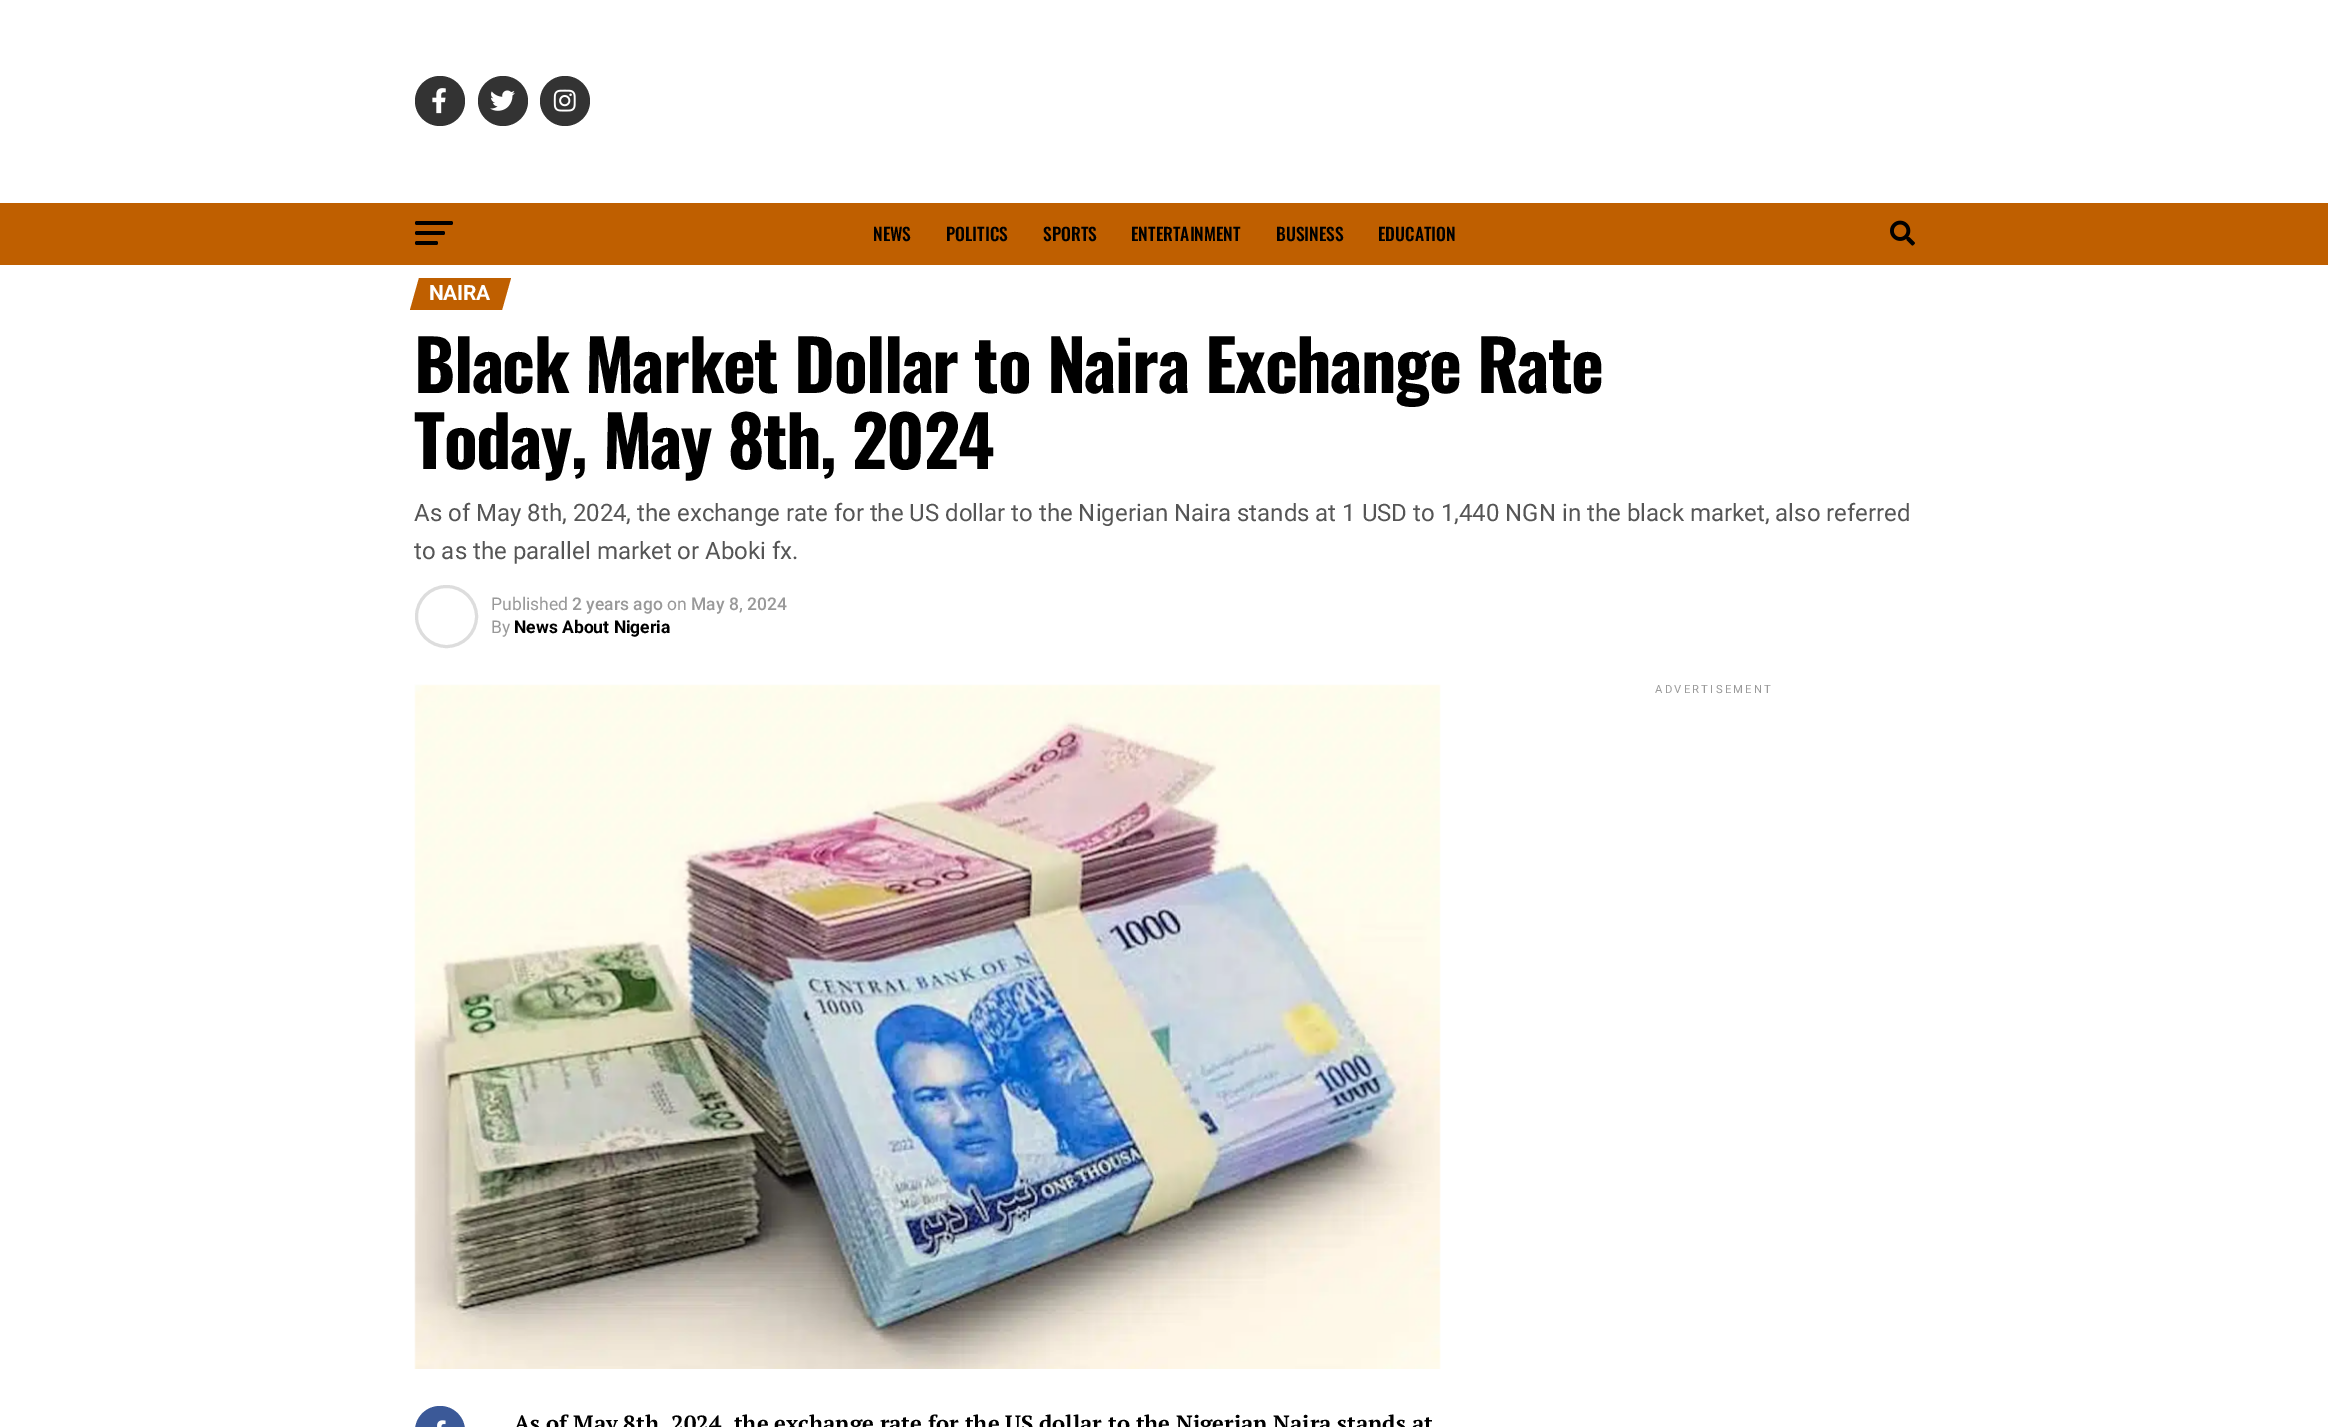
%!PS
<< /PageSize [2328 1427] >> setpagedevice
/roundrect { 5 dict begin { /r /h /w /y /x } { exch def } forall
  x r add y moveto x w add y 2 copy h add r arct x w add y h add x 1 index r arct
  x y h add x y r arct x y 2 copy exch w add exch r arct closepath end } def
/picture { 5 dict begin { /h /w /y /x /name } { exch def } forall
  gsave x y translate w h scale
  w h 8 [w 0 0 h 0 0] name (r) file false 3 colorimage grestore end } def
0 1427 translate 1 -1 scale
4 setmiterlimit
1 setgray
0 0 2328 1427 rectfill
0.2 setgray
newpath 440 101 25 0 360 arc closepath fill
(img1.rgb) 432 88 14 26 picture
newpath 503 101 25 0 360 arc closepath fill
(img2.rgb) 490 90 25 21 picture
newpath 565 101 25 0 360 arc closepath fill
(img3.rgb) 553 89 23 23 picture
0.749 0.373 0 setrgbcolor
0 203 2328 62 rectfill
0 setgray
415 221 38 4 2 roundrect fill
415 231 30 4 2 roundrect fill
415 241 23 4 2 roundrect fill
/Oswald-Medium [17.5 0 0 -17.5 0 0] selectfont
873 241 moveto (NEWS) show
946 241 moveto (POLITICS) show
1043 241 moveto (SPORTS) show
1131 241 moveto (ENTERTAINMENT) show
1276 241 moveto (BUSINESS) show
1378 241 moveto (EDUCATION) show
(img4.rgb) 1890 220 25 26 picture
0.749 0.373 0 setrgbcolor
newpath 419 278 moveto 511 278 lineto 502 310 lineto 410 310 lineto closepath fill
/Roboto-Bold [21 0 0 -21 0 0] selectfont
1 setgray
429 300 moveto -0.5 0 (NAIRA) ashow
/Oswald-Bold [70 0 0 -70 0 0] selectfont
0 setgray
414 393 moveto -1.4 0 (Black Market Dollar to Naira Exchange Rate) ashow
414 469 moveto -1.4 0 (Today, May 8th, 2024) ashow
/Roboto-Regular [24 0 0 -24 0 0] selectfont
0.333 setgray
414 521 moveto (As of May 8th, 2024, the exchange rate for the US dollar to the Nigerian Naira stands at 1 USD to 1,440 NGN in the black market, also referred) show
414 559 moveto (to as the parallel market or Aboki fx.) show
0.867 setgray
3 setlinewidth
newpath 446.5 616.5 30 0 360 arc closepath stroke
/Roboto-Regular [17.5 0 0 -17.5 0 0] selectfont
0.6 setgray
491 610 moveto (Published) show
/Roboto-Medium [17.5 0 0 -17.5 0 0] selectfont
572 610 moveto (2 years ago) show
/Roboto-Regular [17.5 0 0 -17.5 0 0] selectfont
667 610 moveto (on) show
/Roboto-Medium [17.5 0 0 -17.5 0 0] selectfont
691 610 moveto (May 8, 2024) show
/Roboto-Regular [17.5 0 0 -17.5 0 0] selectfont
491 633 moveto (By) show
/Roboto-Bold [17.5 0 0 -17.5 0 0] selectfont
0 setgray
514 633 moveto (News About Nigeria) show
/Roboto-Regular [11.25 0 0 -11.25 0 0] selectfont
0.6 setgray
1655 693 moveto 2.25 0 (ADVERTISEMENT) ashow
(img5.rgb) 414 684 1027 685 picture
0.231 0.349 0.596 setrgbcolor
415 1406 50 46 25 roundrect fill
(img6.rgb) 437 1420 9 7 picture
/PTSerif-Bold [22 0 0 -22 0 0] selectfont
0 setgray
514 1431 moveto (As of May 8th, 2024, the exchange rate for the US dollar to the Nigerian Naira stands at) show
showpage
